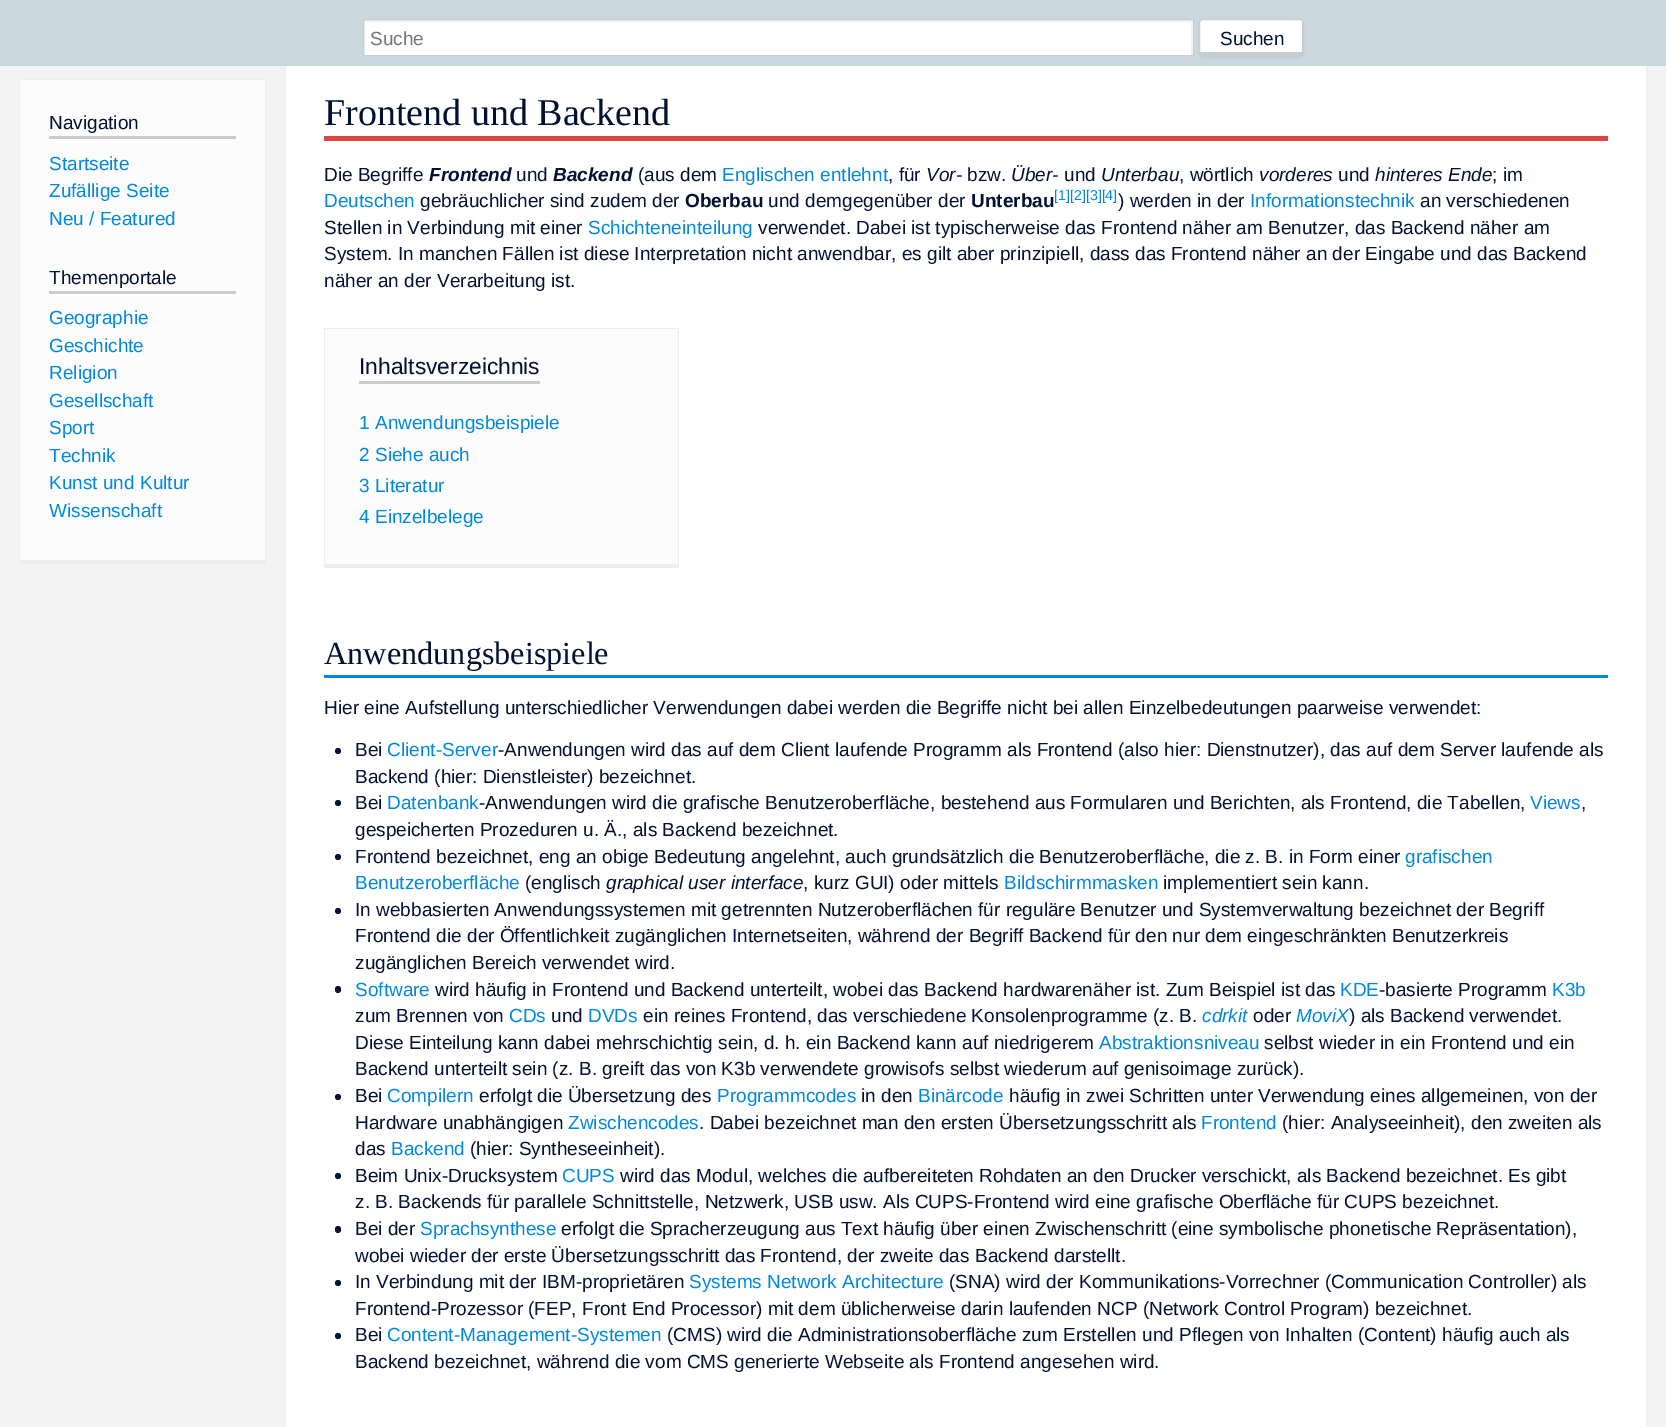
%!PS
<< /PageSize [1666 1427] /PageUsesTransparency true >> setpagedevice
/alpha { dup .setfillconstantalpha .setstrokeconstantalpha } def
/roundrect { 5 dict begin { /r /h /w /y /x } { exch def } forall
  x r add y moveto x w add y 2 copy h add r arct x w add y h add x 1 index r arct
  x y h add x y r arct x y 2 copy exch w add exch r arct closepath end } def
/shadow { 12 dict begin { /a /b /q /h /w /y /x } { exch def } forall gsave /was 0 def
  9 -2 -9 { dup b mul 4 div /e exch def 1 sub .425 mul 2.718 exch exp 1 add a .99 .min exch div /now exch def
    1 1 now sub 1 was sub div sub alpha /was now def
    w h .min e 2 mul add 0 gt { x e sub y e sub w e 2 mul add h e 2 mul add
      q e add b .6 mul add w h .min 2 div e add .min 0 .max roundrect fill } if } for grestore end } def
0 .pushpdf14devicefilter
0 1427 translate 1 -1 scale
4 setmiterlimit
0.953 setgray
0 0 1666 1427 rectfill
0.933 setgray
1646 60 1 1367 rectfill
285 60 1 1367 rectfill
0.792 0.843 0.867 setrgbcolor
0 0 1666 66 rectfill
1 setgray
365 22 826 33 rectfill
gsave
364 20 829 35 rectclip
0.949 setgray
newpath 240 -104 moveto 1316 -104 lineto 1316 179 lineto 240 179 lineto closepath 365 22 moveto 1191 22 lineto 1191 55 lineto 365 55 lineto closepath eofill
grestore
0.8 setgray
363.5 19.5 830 36 rectstroke
/LiberationSans-Regular [19 0 0 -19 0 0] selectfont
0.459 setgray
370 45 moveto (Suche) show
0 setgray
1199 20 105 38 4 1 0.05 shadow
1 setgray
newpath 1203 20 moveto 1300 20 lineto 1301 20 1302 21 1302 23 curveto 1302 52 lineto 1300 52 lineto 1200 52 lineto 1200 23 lineto 1200 21 1201 20 1203 20 curveto closepath fill
0.8 setgray
1199.5 19.5 104 36 3.5 roundrect stroke
1201 53 100 3 rectfill
0 0.067 0.2 setrgbcolor
1220 45 moveto (Suchen) show
0.988 setgray
20 80 245 480 rectfill
0.933 setgray
19 79 247 1 rectfill
265 79 1 485 rectfill
19 560 247 4 rectfill
19 79 1 485 rectfill
0.8 setgray
49 136 187 3 rectfill
0 0.067 0.2 setrgbcolor
49 129 moveto (Navigation) show
0 0.533 0.867 setrgbcolor
49 170 moveto (Startseite) show
49 197 moveto (Zufällige Seite) show
49 225 moveto (Neu / Featured) show
0.8 setgray
49 291 187 3 rectfill
0 0.067 0.2 setrgbcolor
49 284 moveto (Themenportale) show
0 0.533 0.867 setrgbcolor
49 324 moveto (Geographie) show
49 352 moveto (Geschichte) show
49 379 moveto (Religion) show
49 407 moveto (Gesellschaft) show
49 434 moveto (Sport) show
49 462 moveto (Technik) show
49 489 moveto (Kunst und Kultur) show
49 517 moveto (Wissenschaft) show
1 setgray
286 66 1360 1361 rectfill
0.867 0.267 0.267 setrgbcolor
324 136 1284 5 rectfill
/LiberationSerif-Regular [38 0 0 -38 0 0] selectfont
0 0.067 0.2 setrgbcolor
324 125 moveto (Frontend und Backend) show
/LiberationSans-Regular [19 0 0 -19 0 0] selectfont
324 181 moveto (Die Begriffe) show
/LiberationSans-BoldItalic [19 0 0 -19 0 0] selectfont
429 181 moveto (Frontend) show
/LiberationSans-Regular [19 0 0 -19 0 0] selectfont
516 181 moveto (und) show
/LiberationSans-BoldItalic [19 0 0 -19 0 0] selectfont
553 181 moveto (Backend) show
/LiberationSans-Regular [19 0 0 -19 0 0] selectfont
638 181 moveto (\(aus dem) show
0 0.533 0.867 setrgbcolor
722 181 moveto (Englischen entlehnt) show
0 0.067 0.2 setrgbcolor
888 181 moveto (, für) show
/LiberationSans-Italic [19 0 0 -19 0 0] selectfont
926 181 moveto (Vor-) show
/LiberationSans-Regular [19 0 0 -19 0 0] selectfont
967 181 moveto (bzw.) show
/LiberationSans-Italic [19 0 0 -19 0 0] selectfont
1011 181 moveto (Über-) show
/LiberationSans-Regular [19 0 0 -19 0 0] selectfont
1064 181 moveto (und) show
/LiberationSans-Italic [19 0 0 -19 0 0] selectfont
1101 181 moveto (Unterbau) show
/LiberationSans-Regular [19 0 0 -19 0 0] selectfont
1179 181 moveto (, wörtlich) show
/LiberationSans-Italic [19 0 0 -19 0 0] selectfont
1259 181 moveto (vorderes) show
/LiberationSans-Regular [19 0 0 -19 0 0] selectfont
1338 181 moveto (und) show
/LiberationSans-Italic [19 0 0 -19 0 0] selectfont
1375 181 moveto (hinteres Ende) show
/LiberationSans-Regular [19 0 0 -19 0 0] selectfont
1492 181 moveto (; im) show
0 0.533 0.867 setrgbcolor
324 207 moveto (Deutschen) show
0 0.067 0.2 setrgbcolor
420 207 moveto (gebräuchlicher sind zudem der) show
/LiberationSans-Bold [19 0 0 -19 0 0] selectfont
685 207 moveto (Oberbau) show
/LiberationSans-Regular [19 0 0 -19 0 0] selectfont
768 207 moveto (und demgegenüber der) show
/LiberationSans-Bold [19 0 0 -19 0 0] selectfont
971 207 moveto (Unterbau) show
/LiberationSans-Regular [14.25 0 0 -14.25 0 0] selectfont
0 0.533 0.867 setrgbcolor
1054 200 moveto ([1][2][3][4]) show
/LiberationSans-Regular [19 0 0 -19 0 0] selectfont
0 0.067 0.2 setrgbcolor
1118 207 moveto (\) werden in der) show
0 0.533 0.867 setrgbcolor
1250 207 moveto (Informationstechnik) show
0 0.067 0.2 setrgbcolor
1420 207 moveto (an verschiedenen) show
324 234 moveto (Stellen in Verbindung mit einer) show
0 0.533 0.867 setrgbcolor
588 234 moveto (Schichteneinteilung) show
0 0.067 0.2 setrgbcolor
758 234 moveto (verwendet. Dabei ist typischerweise das Frontend näher am Benutzer, das Backend näher am) show
324 260 moveto (System. In manchen Fällen ist diese Interpretation nicht anwendbar, es gilt aber prinzipiell, dass das Frontend näher an der Eingabe und das Backend) show
324 287 moveto (näher an der Verarbeitung ist.) show
0.988 setgray
325 329 353 235 rectfill
0.933 setgray
324 328 355 1 rectfill
678 328 1 240 rectfill
324 564 355 4 rectfill
324 328 1 240 rectfill
0.8 setgray
359 381 181 3 rectfill
/LiberationSans-Regular [22.75 0 0 -22.75 0 0] selectfont
0 0.067 0.2 setrgbcolor
359 374 moveto (Inhaltsverzeichnis) show
/LiberationSans-Regular [19 0 0 -19 0 0] selectfont
0 0.533 0.867 setrgbcolor
359 429 moveto (1 Anwendungsbeispiele) show
359 461 moveto (2 Siehe auch) show
359 492 moveto (3 Literatur) show
359 523 moveto (4 Einzelbelege) show
324 675 1284 3 rectfill
/LiberationSerif-Regular [32.25 0 0 -32.25 0 0] selectfont
0 0.067 0.2 setrgbcolor
324 664 moveto (Anwendungsbeispiele) show
/LiberationSans-Regular [19 0 0 -19 0 0] selectfont
324 714 moveto (Hier eine Aufstellung unterschiedlicher Verwendungen dabei werden die Begriffe nicht bei allen Einzelbedeutungen paarweise verwendet:) show
newpath 338 751 3 0 360 arc closepath fill
355 756 moveto (Bei) show
0 0.533 0.867 setrgbcolor
387 756 moveto (Client-Server) show
0 0.067 0.2 setrgbcolor
498 756 moveto (-Anwendungen wird das auf dem Client laufende Programm als Frontend \(also hier: Dienstnutzer\), das auf dem Server laufende als) show
355 783 moveto (Backend \(hier: Dienstleister\) bezeichnet.) show
newpath 338 803 3 0 360 arc closepath fill
355 809 moveto (Bei) show
0 0.533 0.867 setrgbcolor
387 809 moveto (Datenbank) show
0 0.067 0.2 setrgbcolor
479 809 moveto (-Anwendungen wird die grafische Benutzeroberfläche, bestehend aus Formularen und Berichten, als Frontend, die Tabellen,) show
0 0.533 0.867 setrgbcolor
1530 809 moveto (Views) show
0 0.067 0.2 setrgbcolor
1581 809 moveto (,) show
355 836 moveto (gespeicherten Prozeduren u. Ä., als Backend bezeichnet.) show
newpath 338 857 3 0 360 arc closepath fill
355 863 moveto (Frontend bezeichnet, eng an obige Bedeutung angelehnt, auch grundsätzlich die Benutzeroberfläche, die z. B. in Form einer) show
0 0.533 0.867 setrgbcolor
1405 863 moveto (grafischen) show
355 889 moveto (Benutzeroberfläche) show
0 0.067 0.2 setrgbcolor
525 889 moveto (\(englisch) show
/LiberationSans-Italic [19 0 0 -19 0 0] selectfont
606 889 moveto (graphical user interface) show
/LiberationSans-Regular [19 0 0 -19 0 0] selectfont
803 889 moveto (, kurz GUI\) oder mittels) show
0 0.533 0.867 setrgbcolor
1004 889 moveto (Bildschirmmasken) show
0 0.067 0.2 setrgbcolor
1163 889 moveto (implementiert sein kann.) show
newpath 338 911 3 0 360 arc closepath fill
355 916 moveto (In webbasierten Anwendungssystemen mit getrennten Nutzeroberflächen für reguläre Benutzer und Systemverwaltung bezeichnet der Begriff) show
355 942 moveto (Frontend die der Öffentlichkeit zugänglichen Internetseiten, während der Begriff Backend für den nur dem eingeschränkten Benutzerkreis) show
355 969 moveto (zugänglichen Bereich verwendet wird.) show
335 986 6 7 3 roundrect fill
0 0.533 0.867 setrgbcolor
355 996 moveto (Software) show
0 0.067 0.2 setrgbcolor
435 996 moveto (wird häufig in Frontend und Backend unterteilt, wobei das Backend hardwarenäher ist. Zum Beispiel ist das) show
0 0.533 0.867 setrgbcolor
1340 996 moveto (KDE) show
0 0.067 0.2 setrgbcolor
1379 996 moveto (-basierte Programm) show
0 0.533 0.867 setrgbcolor
1552 996 moveto (K3b) show
0 0.067 0.2 setrgbcolor
355 1022 moveto (zum Brennen von) show
0 0.533 0.867 setrgbcolor
509 1022 moveto (CDs) show
0 0.067 0.2 setrgbcolor
551 1022 moveto (und) show
0 0.533 0.867 setrgbcolor
588 1022 moveto (DVDs) show
0 0.067 0.2 setrgbcolor
643 1022 moveto (ein reines Frontend, das verschiedene Konsolenprogramme \(z. B.) show
/LiberationSans-Italic [19 0 0 -19 0 0] selectfont
0 0.533 0.867 setrgbcolor
1202 1022 moveto (cdrkit) show
/LiberationSans-Regular [19 0 0 -19 0 0] selectfont
0 0.067 0.2 setrgbcolor
1253 1022 moveto (oder) show
/LiberationSans-Italic [19 0 0 -19 0 0] selectfont
0 0.533 0.867 setrgbcolor
1296 1022 moveto (MoviX) show
/LiberationSans-Regular [19 0 0 -19 0 0] selectfont
0 0.067 0.2 setrgbcolor
1349 1022 moveto (\) als Backend verwendet.) show
355 1049 moveto (Diese Einteilung kann dabei mehrschichtig sein, d. h. ein Backend kann auf niedrigerem) show
0 0.533 0.867 setrgbcolor
1099 1049 moveto (Abstraktionsniveau) show
0 0.067 0.2 setrgbcolor
1264 1049 moveto (selbst wieder in ein Frontend und ein) show
355 1075 moveto (Backend unterteilt sein \(z. B. greift das von K3b verwendete growisofs selbst wiederum auf genisoimage zurück\).) show
newpath 338 1097 3 0 360 arc closepath fill
355 1102 moveto (Bei) show
0 0.533 0.867 setrgbcolor
387 1102 moveto (Compilern) show
0 0.067 0.2 setrgbcolor
479 1102 moveto (erfolgt die Übersetzung des) show
0 0.533 0.867 setrgbcolor
717 1102 moveto (Programmcodes) show
0 0.067 0.2 setrgbcolor
861 1102 moveto (in den) show
0 0.533 0.867 setrgbcolor
918 1102 moveto (Binärcode) show
0 0.067 0.2 setrgbcolor
1009 1102 moveto (häufig in zwei Schritten unter Verwendung eines allgemeinen, von der) show
355 1129 moveto (Hardware unabhängigen) show
0 0.533 0.867 setrgbcolor
568 1129 moveto (Zwischencodes) show
0 0.067 0.2 setrgbcolor
699 1129 moveto (. Dabei bezeichnet man den ersten Übersetzungsschritt als) show
0 0.533 0.867 setrgbcolor
1201 1129 moveto (Frontend) show
0 0.067 0.2 setrgbcolor
1282 1129 moveto (\(hier: Analyseeinheit\), den zweiten als) show
355 1155 moveto (das) show
0 0.533 0.867 setrgbcolor
391 1155 moveto (Backend) show
0 0.067 0.2 setrgbcolor
470 1155 moveto (\(hier: Syntheseeinheit\).) show
newpath 338 1176 3 0 360 arc closepath fill
355 1182 moveto (Beim Unix-Drucksystem) show
0 0.533 0.867 setrgbcolor
562 1182 moveto (CUPS) show
0 0.067 0.2 setrgbcolor
620 1182 moveto (wird das Modul, welches die aufbereiteten Rohdaten an den Drucker verschickt, als Backend bezeichnet. Es gibt) show
355 1208 moveto (z. B. Backends für parallele Schnittstelle, Netzwerk, USB usw. Als CUPS-Frontend wird eine grafische Oberfläche für CUPS bezeichnet.) show
335 1226 6 7 3 roundrect fill
355 1235 moveto (Bei der) show
0 0.533 0.867 setrgbcolor
420 1235 moveto (Sprachsynthese) show
0 0.067 0.2 setrgbcolor
561 1235 moveto (erfolgt die Spracherzeugung aus Text häufig über einen Zwischenschritt \(eine symbolische phonetische Repräsentation\),) show
355 1262 moveto (wobei wieder der erste Übersetzungsschritt das Frontend, der zweite das Backend darstellt.) show
newpath 338 1283 3 0 360 arc closepath fill
355 1288 moveto (In Verbindung mit der IBM-proprietären) show
0 0.533 0.867 setrgbcolor
689 1288 moveto (Systems Network Architecture) show
0 0.067 0.2 setrgbcolor
949 1288 moveto (\(SNA\) wird der Kommunikations-Vorrechner \(Communication Controller\) als) show
355 1315 moveto (Frontend-Prozessor \(FEP, Front End Processor\) mit dem üblicherweise darin laufenden NCP \(Network Control Program\) bezeichnet.) show
newpath 338 1336 3 0 360 arc closepath fill
355 1341 moveto (Bei) show
0 0.533 0.867 setrgbcolor
387 1341 moveto (Content-Management-Systemen) show
0 0.067 0.2 setrgbcolor
667 1341 moveto (\(CMS\) wird die Administrationsoberfläche zum Erstellen und Pflegen von Inhalten \(Content\) häufig auch als) show
355 1368 moveto (Backend bezeichnet, während die vom CMS generierte Webseite als Frontend angesehen wird.) show
.poppdf14devicefilter showpage
